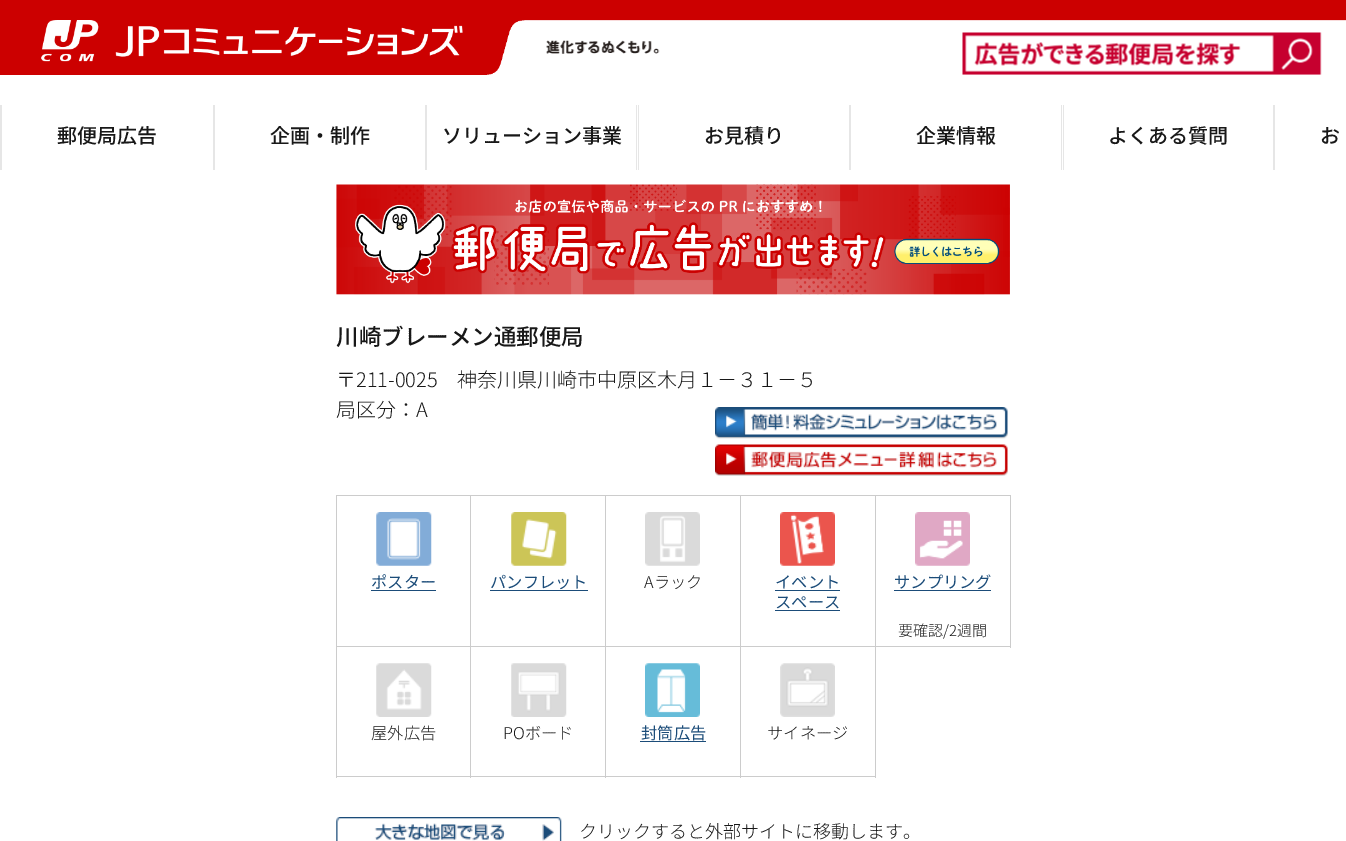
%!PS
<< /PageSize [1346 841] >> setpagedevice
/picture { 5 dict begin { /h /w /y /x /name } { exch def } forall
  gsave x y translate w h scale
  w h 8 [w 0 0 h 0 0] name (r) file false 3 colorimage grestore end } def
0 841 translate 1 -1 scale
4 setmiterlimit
1 setgray
0 0 1346 841 rectfill
(img1.rgb) 0 0 1346 75 picture
(img2.rgb) 41 20 422 42 picture
(img3.rgb) 546 40 114 14 picture
(img4.rgb) 962 32 360 43 picture
0.902 setgray
0 105 2 65 rectfill
213 105 2 65 rectfill
/NotoSansJP-Medium [20 0 0 -20 0 0] selectfont
0.094 setgray
57 143 moveto (郵便局広告) show
0.902 setgray
425 105 2 65 rectfill
0.094 setgray
270 143 moveto (企画・制作) show
0.902 setgray
636 105 1 65 rectfill
0.094 setgray
442 143 moveto (ソリューション事業) show
0.902 setgray
849 105 2 65 rectfill
638 105 1 65 rectfill
0.094 setgray
704 143 moveto (お見積り) show
0.902 setgray
1061 105 1 65 rectfill
0.094 setgray
916 143 moveto (企業情報) show
0.902 setgray
1273 105 2 65 rectfill
1063 105 1 65 rectfill
0.094 setgray
1108 143 moveto (よくある質問) show
1320 143 moveto (お) show
(img5.rgb) 336 184 674 111 picture
/NotoSansJP-Medium [22.5 0 0 -22.5 0 0] selectfont
336 345 moveto (川崎ブレーメン通郵便局) show
/NotoSansJP-Light [20 0 0 -20 0 0] selectfont
336 387 moveto (〒211-0025) show
457 387 moveto (神奈川県川崎市中原区木月１－３１－５) show
336 417 moveto (局区分：A) show
(img6.rgb) 715 407 293 32 picture
(img7.rgb) 715 444 293 32 picture
0.8 setgray
875 495 136 1 rectfill
1010 495 1 153 rectfill
740 646 136 1 rectfill
875 646 1 132 rectfill
875 646 136 1 rectfill
875 495 1 153 rectfill
740 495 136 1 rectfill
740 776 136 1 rectfill
740 646 1 132 rectfill
605 646 136 1 rectfill
740 495 1 153 rectfill
605 495 136 1 rectfill
605 776 136 1 rectfill
605 646 1 132 rectfill
470 646 136 1 rectfill
605 495 1 153 rectfill
470 495 136 1 rectfill
470 776 136 1 rectfill
470 646 1 132 rectfill
336 646 135 1 rectfill
470 495 1 153 rectfill
336 495 135 1 rectfill
336 776 135 1 rectfill
336 646 1 132 rectfill
336 495 1 153 rectfill
(img8.rgb) 376 512 56 54 picture
/NotoSansJP-Regular [16.25 0 0 -16.25 0 0] selectfont
0.106 0.298 0.475 setrgbcolor
371 588 moveto (ポスター) show
371 590 65 1 rectfill
(img9.rgb) 511 512 56 54 picture
490 588 moveto (パンフレット) show
490 590 98 1 rectfill
(img10.rgb) 645 512 55 54 picture
/NotoSansJP-Light [16.25 0 0 -16.25 0 0] selectfont
0.094 setgray
644 588 moveto (Aラック) show
(img11.rgb) 780 512 55 54 picture
/NotoSansJP-Regular [16.25 0 0 -16.25 0 0] selectfont
0.106 0.298 0.475 setrgbcolor
775 588 moveto (イベント) show
775 590 65 1 rectfill
775 608 moveto (スペース) show
775 610 65 1 rectfill
(img12.rgb) 915 512 55 54 picture
894 588 moveto (サンプリング) show
894 590 97 1 rectfill
/NotoSansJP-Light [15 0 0 -15 0 0] selectfont
0.094 setgray
898 636 moveto (要確認/2週間) show
(img13.rgb) 376 663 56 54 picture
/NotoSansJP-Light [16.25 0 0 -16.25 0 0] selectfont
371 739 moveto (屋外広告) show
(img14.rgb) 511 663 56 54 picture
503 739 moveto (POボード) show
(img15.rgb) 645 663 55 54 picture
/NotoSansJP-Regular [16.25 0 0 -16.25 0 0] selectfont
0.106 0.298 0.475 setrgbcolor
641 739 moveto (封筒広告) show
640 741 66 1 rectfill
(img16.rgb) 780 663 55 54 picture
/NotoSansJP-Light [16.25 0 0 -16.25 0 0] selectfont
0.094 setgray
767 739 moveto (サイネージ) show
(img17.rgb) 336 817 226 24 picture
/NotoSansJP-Light [18 0 0 -18 0 0] selectfont
579 838 moveto (クリックすると外部サイトに移動します。) show
showpage
